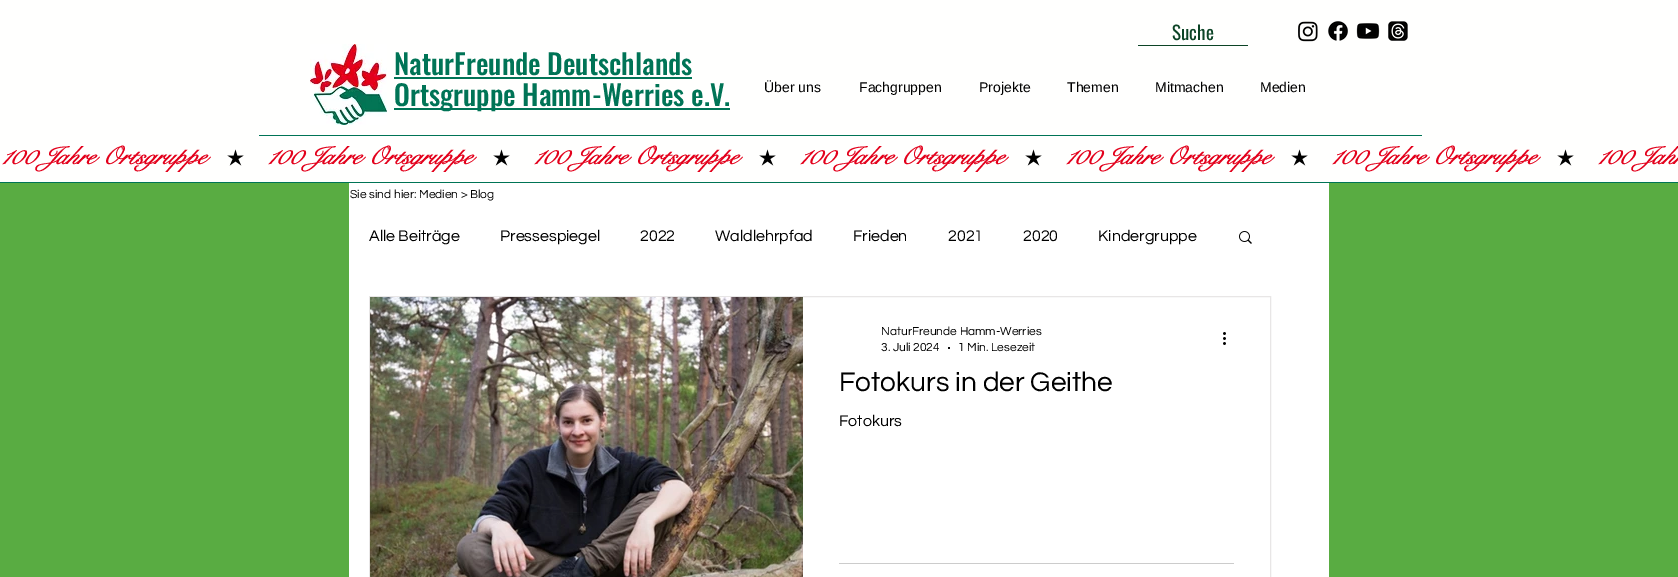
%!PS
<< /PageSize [1678 577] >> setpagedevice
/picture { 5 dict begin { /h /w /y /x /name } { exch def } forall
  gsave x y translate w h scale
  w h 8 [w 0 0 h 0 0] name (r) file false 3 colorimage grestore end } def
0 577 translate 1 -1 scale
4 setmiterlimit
0.349 0.675 0.259 setrgbcolor
0 0 1678 577 rectfill
0 0.455 0.337 setrgbcolor
0 182 1678 1 rectfill
1 1 0.996 setrgbcolor
0 0 1678 182 rectfill
0.047 0.267 0.149 setrgbcolor
1138 45 110 1 rectfill
/Oswald-Regular [19 0 0 -19 0 0] selectfont
1172 40 moveto (Suche) show
(img1.rgb) 1298 21 20 21 picture
(img2.rgb) 1328 21 20 20 picture
(img3.rgb) 1356 23 24 16 picture
(img4.rgb) 1388 21 20 20 picture
(img5.rgb) 310 44 77 81 picture
/Oswald-Medium [28 0 0 -28 0 0] selectfont
0 0.455 0.337 setrgbcolor
394 75 moveto (NaturFreunde Deutschlands) show
394 77 298 2 rectfill
394 108 336 2 rectfill
394 106 moveto (Ortsgruppe Hamm-Werries e.V.) show
/LiberationSans-Regular [14 0 0 -14 0 0] selectfont
0 setgray
764 92 moveto (Über uns) show
859 92 moveto (Fachgruppen) show
979 92 moveto (Projekte) show
1067 92 moveto (Themen) show
1155 92 moveto (Mitmachen) show
1260 92 moveto (Medien) show
0 0.455 0.337 setrgbcolor
259 135 1163 1 rectfill
/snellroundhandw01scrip-BoldItalic [25 0 0 -25 0 0] selectfont
0.89 0 0.106 setrgbcolor
0 164 moveto (100 Jahre Ortsgruppe) show
(img6.rgb) 227 149 17 17 picture
266 164 moveto (100 Jahre Ortsgruppe) show
(img6.rgb) 493 149 17 17 picture
532 164 moveto (100 Jahre Ortsgruppe) show
(img6.rgb) 759 149 17 17 picture
798 164 moveto (100 Jahre Ortsgruppe) show
(img6.rgb) 1025 149 17 17 picture
1064 164 moveto (100 Jahre Ortsgruppe) show
(img6.rgb) 1291 149 17 17 picture
1330 164 moveto (100 Jahre Ortsgruppe) show
(img6.rgb) 1557 149 17 17 picture
1596 164 moveto (100 Jahr) show
1 setgray
349 183 980 394 rectfill
/Questrial-Regular [12 0 0 -12 0 0] selectfont
0 setgray
350 198 moveto (Sie sind hier: Medien > Blog) show
/Questrial-Regular [16 0 0 -16 0 0] selectfont
369 241 moveto (Alle Beiträge) show
500 241 moveto (Pressespiegel) show
640 241 moveto (2022) show
715 241 moveto (Waldlehrpfad) show
853 241 moveto (Frieden) show
948 241 moveto (2021) show
1023 241 moveto (2020) show
1098 241 moveto (Kindergruppe) show
(img7.rgb) 1239 231 13 13 picture
0.91 0.902 0.902 setrgbcolor
369.5 296.5 901 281 rectstroke
(img8.rgb) 370 297 433 280 picture
/Questrial-Regular [12 0 0 -12 0 0] selectfont
0 setgray
881 335 moveto (NaturFreunde Hamm-Werries) show
881 351 moveto (3. Juli 2024) show
newpath 949 348 1 0 360 arc closepath fill
958 351 moveto (1 Min. Lesezeit) show
(img9.rgb) 1223 332 3 13 picture
/Questrial-Regular [28 0 0 -28 0 0] selectfont
839 391 moveto (Fotokurs in der Geithe) show
/Questrial-Regular [16 0 0 -16 0 0] selectfont
839 426 moveto (Fotokurs) show
0.8 setgray
839 563 395 1 rectfill
showpage
